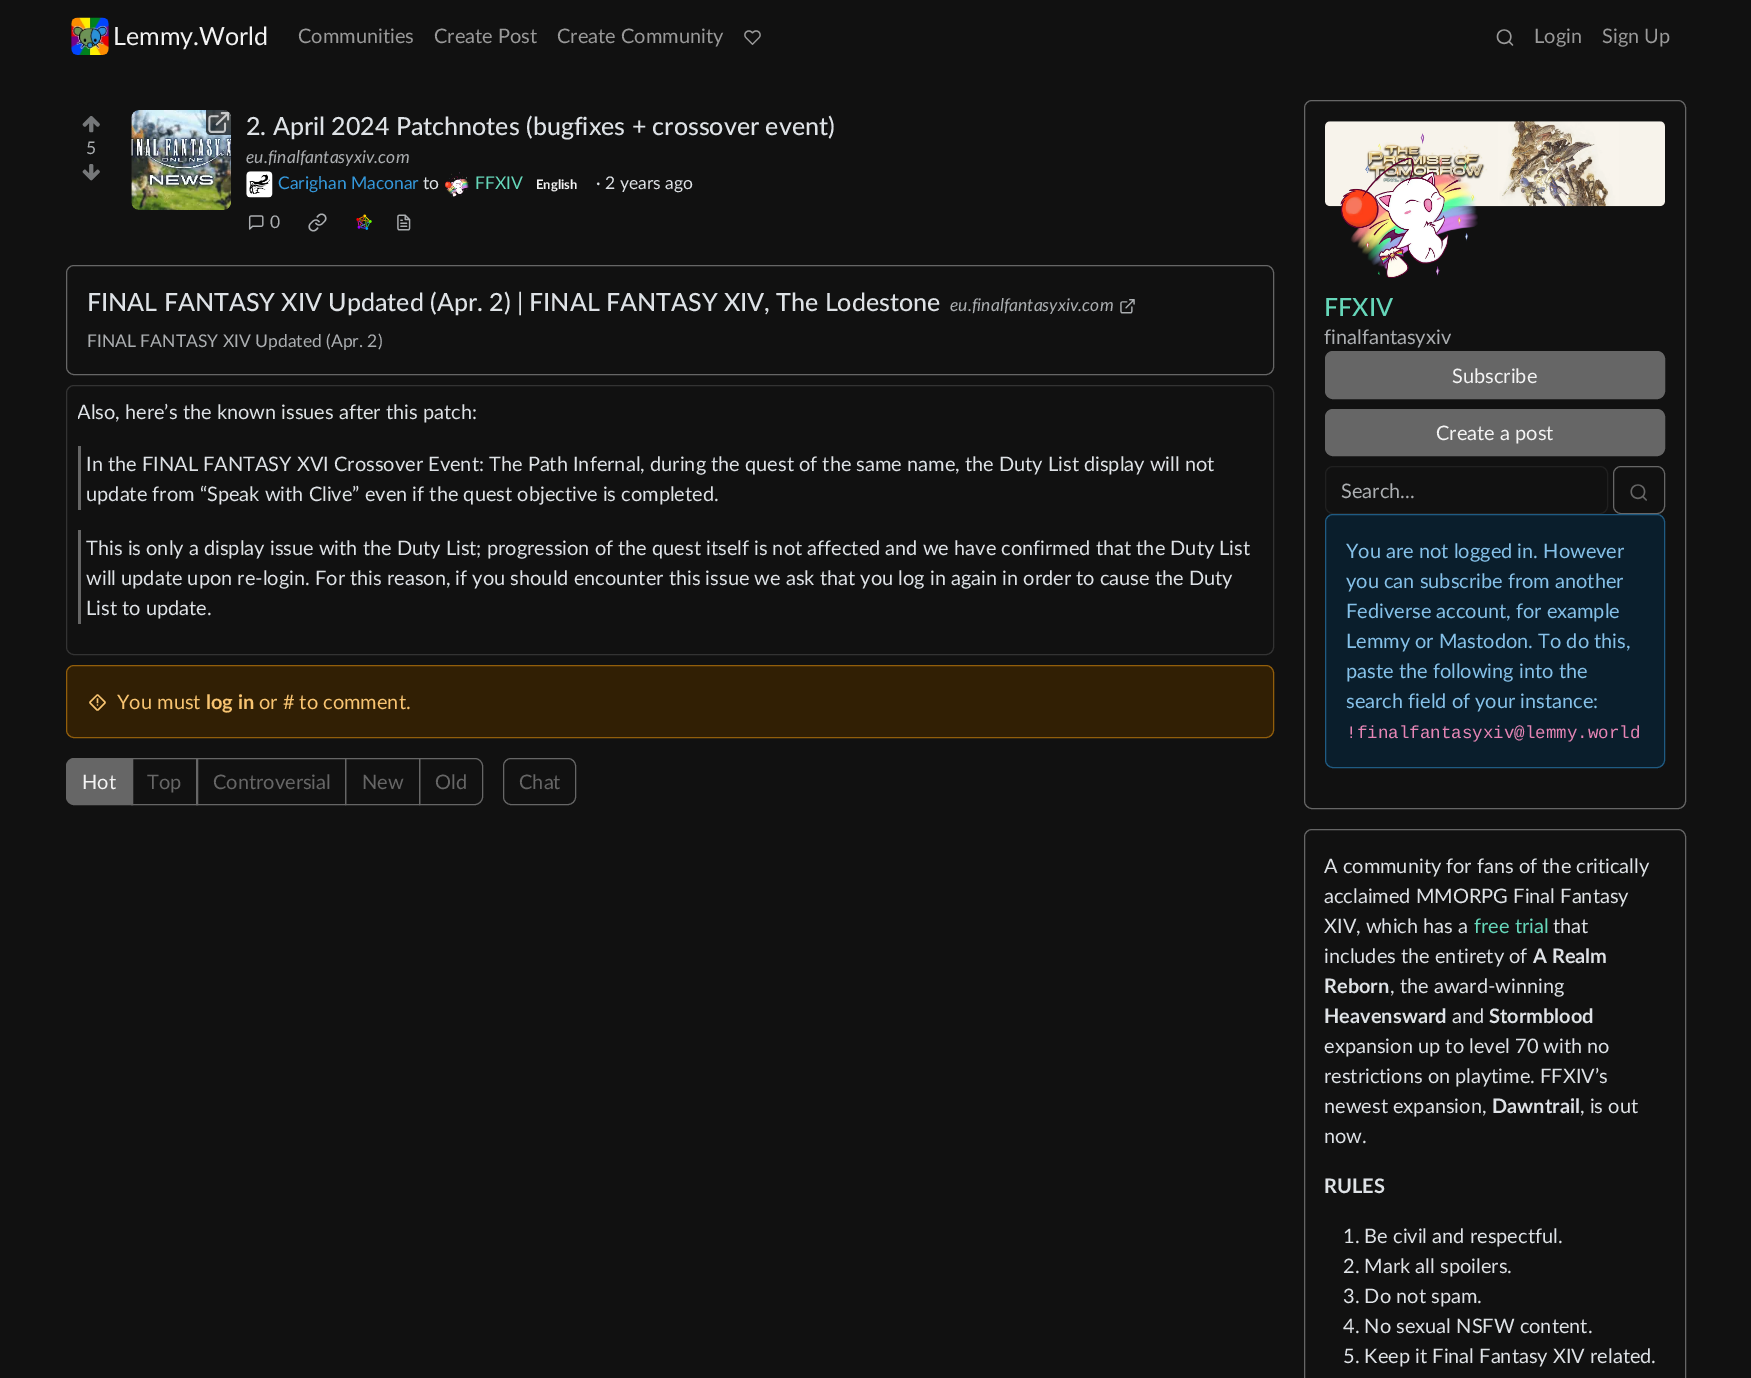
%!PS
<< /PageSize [1751 1378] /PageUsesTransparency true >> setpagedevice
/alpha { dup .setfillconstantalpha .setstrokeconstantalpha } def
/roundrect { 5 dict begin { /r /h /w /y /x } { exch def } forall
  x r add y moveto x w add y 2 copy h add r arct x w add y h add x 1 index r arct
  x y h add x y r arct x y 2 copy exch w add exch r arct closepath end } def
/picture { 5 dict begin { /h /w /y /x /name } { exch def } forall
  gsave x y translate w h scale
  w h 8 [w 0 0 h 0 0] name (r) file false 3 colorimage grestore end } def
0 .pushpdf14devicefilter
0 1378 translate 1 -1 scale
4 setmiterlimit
0.067 setgray
0 0 1751 1378 rectfill
(img1.rgb) 71 17 38 38 picture
/Lato-Regular [25 0 0 -25 0 0] selectfont
0.953 setgray
113 45 moveto (Lemmy.World) show
/Lato-Regular [20 0 0 -20 0 0] selectfont
0.6 setgray
298 43 moveto (Communities) show
434 43 moveto (Create Post) show
557 43 moveto (Create Community) show
(img2.rgb) 744 30 17 15 picture
(img3.rgb) 1496 29 18 17 picture
1534 43 moveto (Login) show
1602 43 moveto (Sign Up) show
(img4.rgb) 82 116 18 17 picture
/Lato-Regular [17.5 0 0 -17.5 0 0] selectfont
0.671 0.682 0.694 setrgbcolor
86 154 moveto (5) show
(img5.rgb) 82 164 18 17 picture
(img6.rgb) 131 110 100 100 picture
0.7 alpha
0 setgray
newpath 206 110 moveto 223 110 lineto 227.5 110 231 113.5 231 118 curveto 231 135 lineto 211 135 lineto 208 135 206 133 206 130 curveto closepath fill
1 alpha
(img7.rgb) 208 112 22 21 picture
/Lato-Medium [25 0 0 -25 0 0] selectfont
0.871 0.886 0.902 setrgbcolor
246 135 moveto (2. April 2024 Patchnotes \(bugfixes + crossover event\)) show
/Lato-Italic [17.5 0 0 -17.5 0 0] selectfont
0.671 0.682 0.694 setrgbcolor
246 163 moveto (eu.finalfantasyxiv.com) show
(img8.rgb) 246 171 27 27 picture
/Lato-Regular [17.5 0 0 -17.5 0 0] selectfont
0.204 0.596 0.859 setrgbcolor
278 189 moveto (Carighan Maconar) show
0.871 0.886 0.902 setrgbcolor
423 189 moveto (to) show
(img9.rgb) 445 172 24 25 picture
0.4 0.843 0.729 setrgbcolor
475 189 moveto (FFXIV) show
/Lato-Bold [13 0 0 -13 0 0] selectfont
0.953 setgray
536 189 moveto (English) show
/Lato-Regular [17.5 0 0 -17.5 0 0] selectfont
0.871 0.886 0.902 setrgbcolor
596 189 moveto (· 2 years ago) show
(img10.rgb) 248 215 16 15 picture
0.671 0.682 0.694 setrgbcolor
270 228 moveto (0) show
(img11.rgb) 308 213 19 19 picture
(img12.rgb) 356 214 16 16 picture
(img13.rgb) 397 214 14 17 picture
0.4 setgray
66.5 265.5 1207 109 7.5 roundrect stroke
/Lato-Medium [25 0 0 -25 0 0] selectfont
0.871 0.886 0.902 setrgbcolor
87 311 moveto (FINAL FANTASY XIV Updated \(Apr. 2\) | FINAL FANTASY XIV, The Lodestone) show
/Lato-Italic [17.5 0 0 -17.5 0 0] selectfont
0.671 0.682 0.694 setrgbcolor
950 311 moveto (eu.finalfantasyxiv.com) show
(img14.rgb) 1120 299 15 15 picture
/Lato-Regular [17.5 0 0 -17.5 0 0] selectfont
87 347 moveto (FINAL FANTASY XIV Updated \(Apr. 2\)) show
0.2 setgray
66.5 385.5 1207 269 7.5 roundrect stroke
gsave
78 396 1185 30 rectclip
/Lato-Regular [20 0 0 -20 0 0] selectfont
0.871 0.886 0.902 setrgbcolor
77 419 moveto (Also, here’s the known issues after this patch:) show
grestore
0.4 setgray
78 446 3 64 rectfill
/Lato-Regular [20 0 0 -20 0 0] selectfont
0.871 0.886 0.902 setrgbcolor
86 471 moveto (In the FINAL FANTASY XVI Crossover Event: The Path Infernal, during the quest of the same name, the Duty List display will not) show
86 501 moveto (update from “Speak with Clive” even if the quest objective is completed.) show
0.4 setgray
78 530 3 94 rectfill
0.871 0.886 0.902 setrgbcolor
86 555 moveto (This is only a display issue with the Duty List; progression of the quest itself is not affected and we have confirmed that the Duty List) show
86 585 moveto (will update upon re-login. For this reason, if you should encounter this issue we ask that you log in again in order to cause the Duty) show
86 615 moveto (List to update.) show
0.192 0.122 0.016 setrgbcolor
66.5 665.5 1207 72 7.5 roundrect gsave fill grestore
0.573 0.369 0.043 setrgbcolor
stroke
(img15.rgb) 89 694 17 17 picture
0.973 0.769 0.443 setrgbcolor
117 709 moveto (You must) show
/Lato-Bold [20 0 0 -20 0 0] selectfont
206 709 moveto (log in) show
/Lato-Regular [20 0 0 -20 0 0] selectfont
259 709 moveto (or # to comment.) show
0.4 setgray
131.5 758.5 66 46 rectstroke
newpath 74 758.5 moveto 132.5 758.5 lineto 132.5 804.5 lineto 74 804.5 lineto 70 804.5 66.5 801 66.5 797 curveto 66.5 766 lineto 66.5 762 70 758.5 74 758.5 curveto closepath gsave fill grestore
stroke
0.953 setgray
82 789 moveto (Hot) show
0.4 setgray
147 789 moveto (Top) show
196.5 758.5 149 46 rectstroke
213 789 moveto (Controversial) show
345.5 758.5 74 46 rectstroke
362 789 moveto (New) show
newpath 419.5 758.5 moveto 475 758.5 lineto 479 758.5 482.5 762 482.5 766 curveto 482.5 797 lineto 482.5 801 479 804.5 475 804.5 curveto 419.5 804.5 lineto closepath stroke
435 789 moveto (Old) show
503.5 758.5 72 46 7.5 roundrect stroke
519 789 moveto (Chat) show
1304.5 100.5 381 708 7.5 roundrect stroke
(img16.rgb) 1325 121 340 86 picture
(img17.rgb) 1340 133 138 145 picture
/Lato-Medium [25 0 0 -25 0 0] selectfont
0.4 0.843 0.729 setrgbcolor
1324 316 moveto (FFXIV) show
/Lato-Regular [20 0 0 -20 0 0] selectfont
0.671 0.682 0.694 setrgbcolor
1324 344 moveto (finalfantasyxiv) show
0.4 setgray
1325.5 351.5 339 47 7.5 roundrect gsave fill grestore
stroke
0.953 setgray
1452 383 moveto (Subscribe) show
0.4 setgray
1325.5 409.5 339 46 7.5 roundrect gsave fill grestore
stroke
0.953 setgray
1436 440 moveto (Create a post) show
0.125 setgray
1325.5 466.5 282 47 7.5 roundrect stroke
0.671 0.682 0.694 setrgbcolor
1341 498 moveto (Search...) show
0.4 setgray
1613.5 466.5 51 47 7.5 roundrect stroke
(img18.rgb) 1630 484 17 17 picture
0.039 0.118 0.173 setrgbcolor
1325.5 514.5 339 253 7.5 roundrect gsave fill grestore
0.122 0.357 0.514 setrgbcolor
stroke
0.522 0.757 0.914 setrgbcolor
1346 558 moveto (You are not logged in. However) show
1346 588 moveto (you can subscribe from another) show
1346 618 moveto (Fediverse account, for example) show
1346 648 moveto (Lemmy or Mastodon. To do this,) show
1346 678 moveto (paste the following into the) show
1346 708 moveto (search field of your instance:) show
/LiberationMono-Regular [17.5 0 0 -17.5 0 0] selectfont
0.902 0.522 0.71 setrgbcolor
1346 738 moveto (!finalfantasyxiv@lemmy.world) show
0.4 setgray
1304.5 829.5 381 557 7.5 roundrect stroke
/Lato-Regular [20 0 0 -20 0 0] selectfont
0.871 0.886 0.902 setrgbcolor
1324 873 moveto (A community for fans of the critically) show
1324 903 moveto (acclaimed MMORPG Final Fantasy) show
1324 933 moveto (XIV, which has a) show
0.4 0.843 0.729 setrgbcolor
1474 933 moveto (free trial) show
0.871 0.886 0.902 setrgbcolor
1553 933 moveto (that) show
1324 963 moveto (includes the entirety of) show
/Lato-Bold [20 0 0 -20 0 0] selectfont
1533 963 moveto (A Realm) show
1324 993 moveto (Reborn) show
/Lato-Regular [20 0 0 -20 0 0] selectfont
1390 993 moveto (, the award-winning) show
/Lato-Bold [20 0 0 -20 0 0] selectfont
1324 1023 moveto (Heavensward) show
/Lato-Regular [20 0 0 -20 0 0] selectfont
1452 1023 moveto (and) show
/Lato-Bold [20 0 0 -20 0 0] selectfont
1489 1023 moveto (Stormblood) show
/Lato-Regular [20 0 0 -20 0 0] selectfont
1324 1053 moveto (expansion up to level 70 with no) show
1324 1083 moveto (restrictions on playtime. FFXIV’s) show
1324 1113 moveto (newest expansion,) show
/Lato-Bold [20 0 0 -20 0 0] selectfont
1492 1113 moveto (Dawntrail) show
/Lato-Regular [20 0 0 -20 0 0] selectfont
1580 1113 moveto (, is out) show
1324 1143 moveto (now.) show
/Lato-Bold [20 0 0 -20 0 0] selectfont
1324 1193 moveto (RULES) show
/Lato-Regular [20 0 0 -20 0 0] selectfont
1343 1243 moveto (1. Be civil and respectful.) show
1343 1273 moveto (2. Mark all spoilers.) show
1343 1303 moveto (3. Do not spam.) show
1343 1333 moveto (4. No sexual NSFW content.) show
1343 1363 moveto (5. Keep it Final Fantasy XIV related.) show
.poppdf14devicefilter showpage
